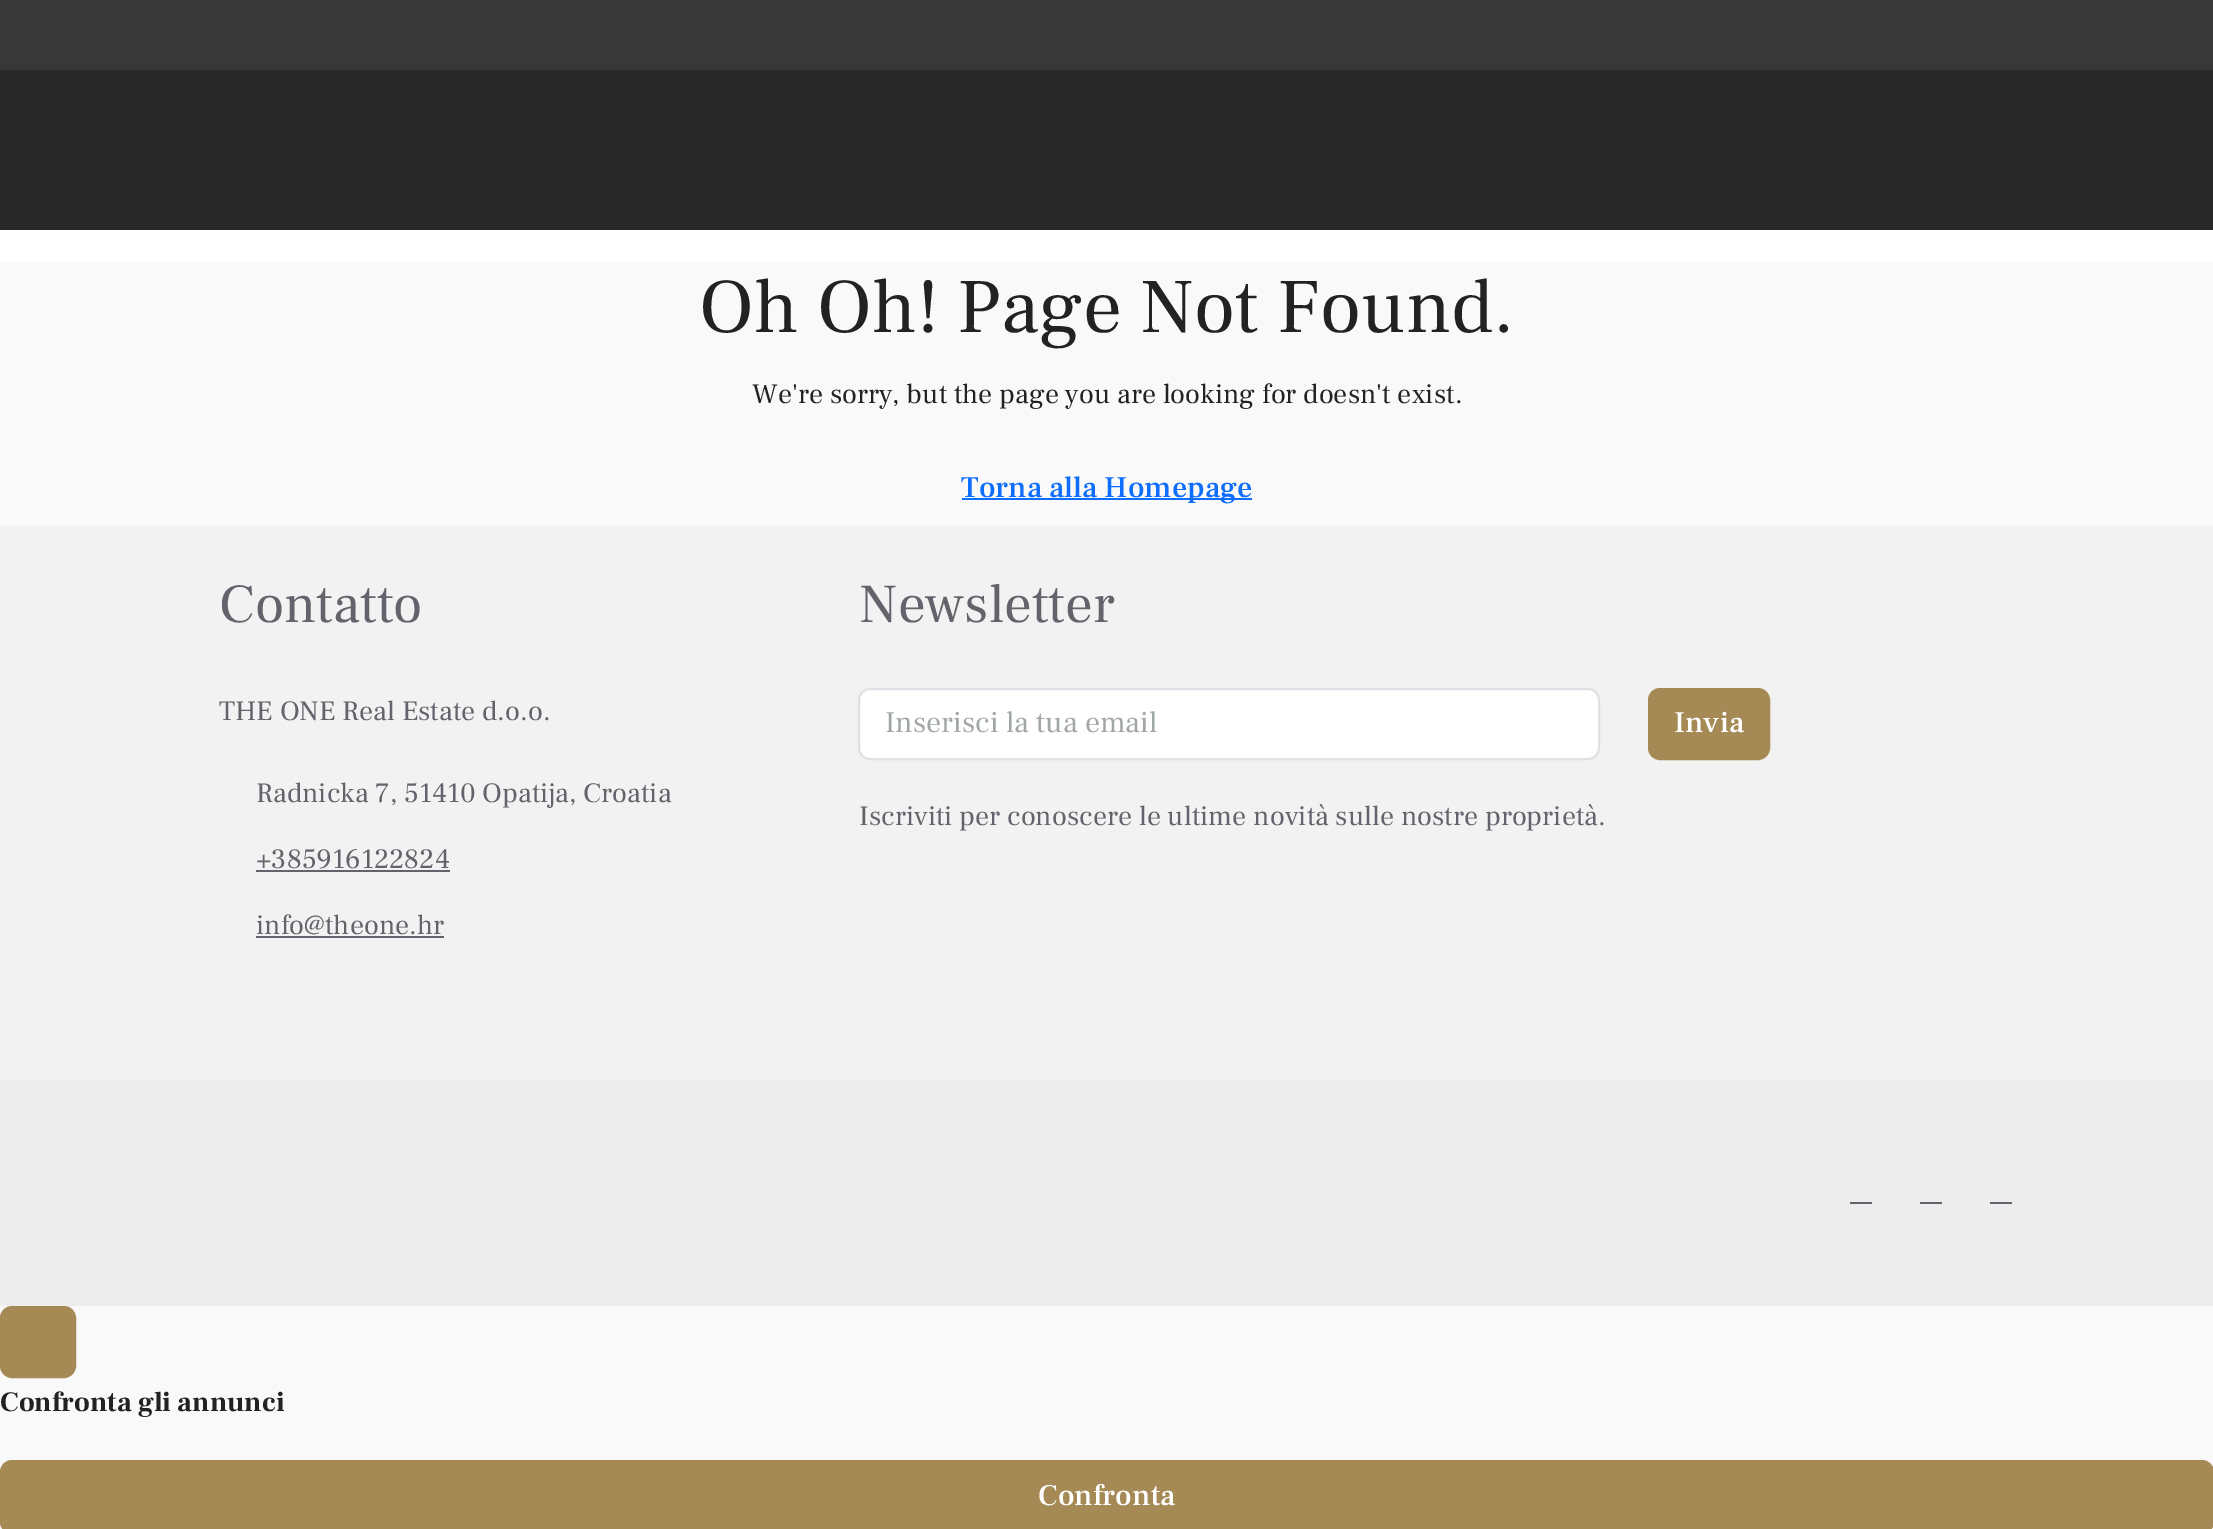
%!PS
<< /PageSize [2213 1529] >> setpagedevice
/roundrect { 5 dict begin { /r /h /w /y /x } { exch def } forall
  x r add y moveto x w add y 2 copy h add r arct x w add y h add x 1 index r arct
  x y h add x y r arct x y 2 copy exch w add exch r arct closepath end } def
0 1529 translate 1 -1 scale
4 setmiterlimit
0.976 setgray
0 0 2213 1529 rectfill
0.22 setgray
0 0 2213 70 rectfill
0.157 setgray
0 70 2213 160 rectfill
1 setgray
0 230 2213 32 rectfill
/FrankRuhlLibre-Regular [77.25 0 0 -77.25 0 0] selectfont
0.133 setgray
699 332 moveto (Oh Oh! Page Not Found.) show
/FrankRuhlLibre-Regular [28 0 0 -28 0 0] selectfont
752 403 moveto (We're sorry, but the page you are looking for doesn't exist.) show
0.051 0.431 0.992 setrgbcolor
962 498 290 2 rectfill
/FrankRuhlLibre-Medium [30 0 0 -30 0 0] selectfont
961 497 moveto (Torna alla Homepage) show
0.949 setgray
0 526 2213 554 rectfill
/FrankRuhlLibre-Regular [55 0 0 -55 0 0] selectfont
0.388 0.388 0.42 setrgbcolor
219 622 moveto (Contatto) show
/FrankRuhlLibre-Regular [28 0 0 -28 0 0] selectfont
219 720 moveto (THE ONE Real Estate d.o.o.) show
256 802 moveto (Radnicka 7, 51410 Opatija, Croatia) show
256 868 moveto (+385916122824) show
256 870 194 2 rectfill
256 934 moveto (info@theone.hr) show
256 936 188 2 rectfill
/FrankRuhlLibre-Regular [55 0 0 -55 0 0] selectfont
859 622 moveto (Newsletter) show
1 setgray
859 689 740 70 11 roundrect gsave fill grestore
0.871 0.886 0.902 setrgbcolor
2 setlinewidth
stroke
/FrankRuhlLibre-Regular [30 0 0 -30 0 0] selectfont
0.631 0.655 0.659 setrgbcolor
885 732 moveto (Inserisci la tua email) show
0.647 0.541 0.337 setrgbcolor
1649 689 120 70 11 roundrect gsave fill grestore
stroke
/FrankRuhlLibre-Medium [30 0 0 -30 0 0] selectfont
1 setgray
1674 732 moveto (Invia) show
/FrankRuhlLibre-Regular [28 0 0 -28 0 0] selectfont
0.388 0.388 0.42 setrgbcolor
859 825 moveto (Iscriviti per conoscere le ultime novità sulle nostre proprietà.) show
0.929 setgray
0 1080 2213 226 rectfill
0.388 0.388 0.42 setrgbcolor
1850 1202 22 2 rectfill
1920 1202 22 2 rectfill
1990 1202 22 2 rectfill
0.647 0.541 0.337 setrgbcolor
1 1307 74 70 11 roundrect gsave fill grestore
stroke
/FrankRuhlLibre-Bold [28 0 0 -28 0 0] selectfont
0.133 setgray
0 1411 moveto (Confronta gli annunci) show
0.647 0.541 0.337 setrgbcolor
1 1461 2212 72 11 roundrect gsave fill grestore
stroke
/FrankRuhlLibre-Medium [30 0 0 -30 0 0] selectfont
1 setgray
1038 1505 moveto (Confronta) show
showpage
